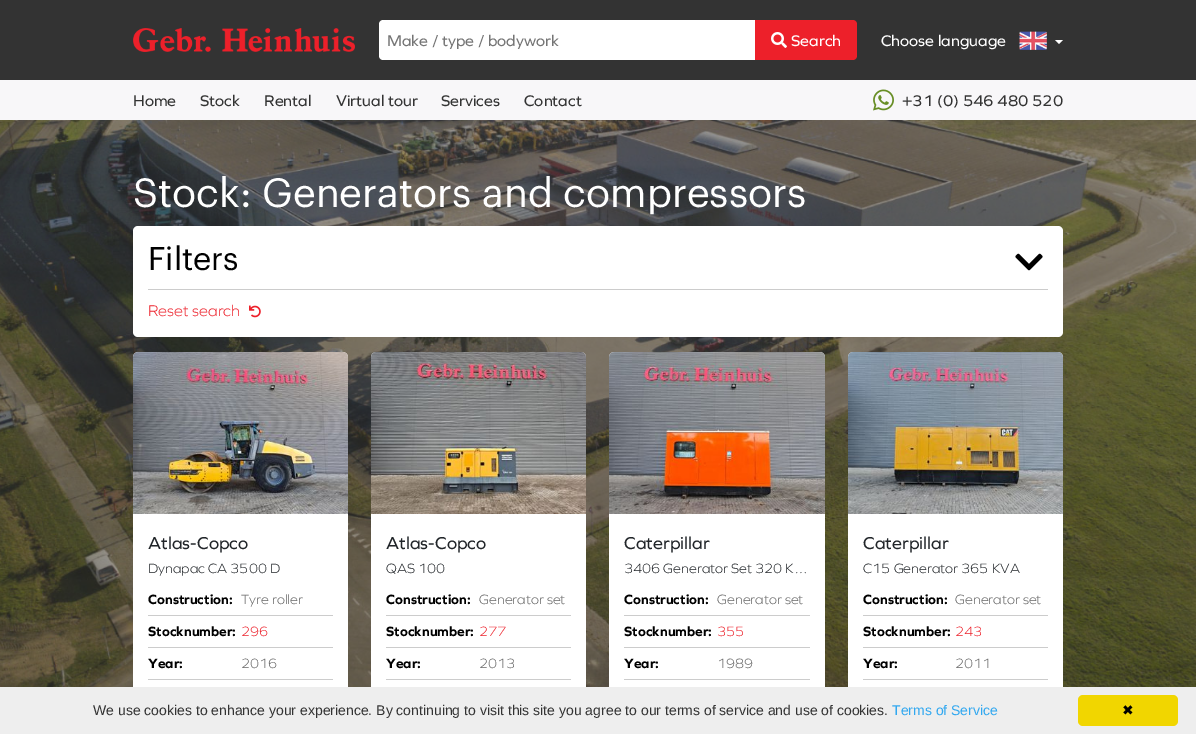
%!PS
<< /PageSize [1196 734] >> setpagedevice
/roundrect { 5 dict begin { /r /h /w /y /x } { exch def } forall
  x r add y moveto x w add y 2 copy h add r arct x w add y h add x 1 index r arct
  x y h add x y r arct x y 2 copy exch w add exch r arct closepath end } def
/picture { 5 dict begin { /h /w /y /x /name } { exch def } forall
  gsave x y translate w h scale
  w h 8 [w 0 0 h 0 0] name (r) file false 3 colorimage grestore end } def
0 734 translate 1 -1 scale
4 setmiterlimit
0.2 setgray
0 0 1196 734 rectfill
(img1.rgb) 133 28 222 24 picture
1 setgray
newpath 383 20 moveto 755 20 lineto 755 60 lineto 383 60 lineto 381 60 379 58 379 56 curveto 379 24 lineto 379 22 381 20 383 20 curveto closepath fill
gsave
387 31 360 18 rectclip
/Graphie-Regular [16 0 0 -16 0 0] selectfont
0.459 setgray
387 46 moveto (Make / type / bodywork) show
grestore
0.929 0.125 0.165 setrgbcolor
newpath 755 20 moveto 853 20 lineto 855 20 857 22 857 24 curveto 857 56 lineto 857 58 855 60 853 60 curveto 755 60 lineto closepath fill
(img2.rgb) 771 32 16 16 picture
/Graphie-Regular [16 0 0 -16 0 0] selectfont
1 setgray
791 46 moveto (Search) show
881 46 moveto (Choose language) show
(img3.rgb) 1019 31 28 19 picture
newpath 1055 40 moveto 1063 40 lineto 1059 44 lineto closepath fill
0.973 0.969 0.976 setrgbcolor
0 80 1196 40 rectfill
0.2 setgray
133 106 moveto (Home) show
200 106 moveto (Stock) show
264 106 moveto (Rental) show
336 106 moveto (Virtual tour) show
441 106 moveto (Services) show
524 106 moveto (Contact) show
(img4.rgb) 873 89 21 22 picture
902 106 moveto (+31 \(0\) 546 480 520) show
(img5.rgb) 0 120 1196 567 picture
/Graphik-Regular [40 0 0 -40 0 0] selectfont
1 setgray
133 207 moveto (Stock: Generators and compressors) show
133 226 930 111 5 roundrect fill
0.8 setgray
148 289 900 1 rectfill
/Graphik-Regular [32 0 0 -32 0 0] selectfont
0 setgray
148 270 moveto (Filters) show
(img6.rgb) 1015 253 28 18 picture
/Graphie-Light [16 0 0 -16 0 0] selectfont
0.929 0.125 0.165 setrgbcolor
148 316 moveto (Reset search) show
(img7.rgb) 249 305 12 13 picture
1 setgray
133 352 215 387 5 roundrect fill
(img8.rgb) 133 352 215 162 picture
/Graphie-Regular [18 0 0 -18 0 0] selectfont
0.129 0.145 0.161 setrgbcolor
148 549 moveto (Atlas-Copco) show
/Graphie-Light [14 0 0 -14 0 0] selectfont
148 573 moveto (Dynapac CA 3500 D) show
0.8 setgray
148 615 185 1 rectfill
/Graphie-Bold [14 0 0 -14 0 0] selectfont
0 setgray
148 604 moveto (Construction:) show
/Graphie-Light [14 0 0 -14 0 0] selectfont
0.4 setgray
241 604 moveto (Tyre roller) show
0.8 setgray
148 647 185 1 rectfill
/Graphie-Bold [14 0 0 -14 0 0] selectfont
0 setgray
148 636 moveto (Stocknumber:) show
/Graphie-Light [14 0 0 -14 0 0] selectfont
0.929 0.125 0.165 setrgbcolor
241 636 moveto (296) show
0.8 setgray
148 679 185 1 rectfill
/Graphie-Bold [14 0 0 -14 0 0] selectfont
0 setgray
148 668 moveto (Year:) show
/Graphie-Light [14 0 0 -14 0 0] selectfont
0.4 setgray
241 668 moveto (2016) show
1 setgray
371 352 215 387 5 roundrect fill
(img9.rgb) 371 352 215 162 picture
/Graphie-Regular [18 0 0 -18 0 0] selectfont
0.129 0.145 0.161 setrgbcolor
386 549 moveto (Atlas-Copco) show
/Graphie-Light [14 0 0 -14 0 0] selectfont
386 573 moveto (QAS 100) show
0.8 setgray
386 615 185 1 rectfill
/Graphie-Bold [14 0 0 -14 0 0] selectfont
0 setgray
386 604 moveto (Construction:) show
/Graphie-Light [14 0 0 -14 0 0] selectfont
0.4 setgray
479 604 moveto (Generator set) show
0.8 setgray
386 647 185 1 rectfill
/Graphie-Bold [14 0 0 -14 0 0] selectfont
0 setgray
386 636 moveto (Stocknumber:) show
/Graphie-Light [14 0 0 -14 0 0] selectfont
0.929 0.125 0.165 setrgbcolor
479 636 moveto (277) show
0.8 setgray
386 679 185 1 rectfill
/Graphie-Bold [14 0 0 -14 0 0] selectfont
0 setgray
386 668 moveto (Year:) show
/Graphie-Light [14 0 0 -14 0 0] selectfont
0.4 setgray
479 668 moveto (2013) show
1 setgray
609 352 216 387 5 roundrect fill
(img10.rgb) 609 352 216 162 picture
/Graphie-Regular [18 0 0 -18 0 0] selectfont
0.129 0.145 0.161 setrgbcolor
624 549 moveto (Caterpillar) show
/Graphie-Light [14 0 0 -14 0 0] selectfont
624 573 moveto (3406 Generator Set 320 K…) show
0.8 setgray
624 615 186 1 rectfill
/Graphie-Bold [14 0 0 -14 0 0] selectfont
0 setgray
624 604 moveto (Construction:) show
/Graphie-Light [14 0 0 -14 0 0] selectfont
0.4 setgray
717 604 moveto (Generator set) show
0.8 setgray
624 647 186 1 rectfill
/Graphie-Bold [14 0 0 -14 0 0] selectfont
0 setgray
624 636 moveto (Stocknumber:) show
/Graphie-Light [14 0 0 -14 0 0] selectfont
0.929 0.125 0.165 setrgbcolor
717 636 moveto (355) show
0.8 setgray
624 679 186 1 rectfill
/Graphie-Bold [14 0 0 -14 0 0] selectfont
0 setgray
624 668 moveto (Year:) show
/Graphie-Light [14 0 0 -14 0 0] selectfont
0.4 setgray
717 668 moveto (1989) show
1 setgray
848 352 215 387 5 roundrect fill
(img11.rgb) 848 352 215 162 picture
/Graphie-Regular [18 0 0 -18 0 0] selectfont
0.129 0.145 0.161 setrgbcolor
863 549 moveto (Caterpillar) show
/Graphie-Light [14 0 0 -14 0 0] selectfont
863 573 moveto (C15 Generator 365 KVA) show
0.8 setgray
863 615 185 1 rectfill
/Graphie-Bold [14 0 0 -14 0 0] selectfont
0 setgray
863 604 moveto (Construction:) show
/Graphie-Light [14 0 0 -14 0 0] selectfont
0.4 setgray
955 604 moveto (Generator set) show
0.8 setgray
863 647 185 1 rectfill
/Graphie-Bold [14 0 0 -14 0 0] selectfont
0 setgray
863 636 moveto (Stocknumber:) show
/Graphie-Light [14 0 0 -14 0 0] selectfont
0.929 0.125 0.165 setrgbcolor
955 636 moveto (243) show
0.8 setgray
863 679 185 1 rectfill
/Graphie-Bold [14 0 0 -14 0 0] selectfont
0 setgray
863 668 moveto (Year:) show
/Graphie-Light [14 0 0 -14 0 0] selectfont
0.4 setgray
955 668 moveto (2011) show
0.933 setgray
0 687 1196 47 rectfill
/LiberationSans-Regular [14 0 0 -14 0 0] selectfont
0.2 setgray
93 715 moveto (We use cookies to enhance your experience. By continuing to visit this site you agree to our terms of service and use of cookies.) show
0.192 0.659 0.941 setrgbcolor
892 715 moveto (Terms of Service) show
0.945 0.839 0 setrgbcolor
1078 695 100 31 5 roundrect fill
/DejaVuSans-Regular [14 0 0 -14 0 0] selectfont
0 setgray
1122 715 moveto (✖) show
showpage
